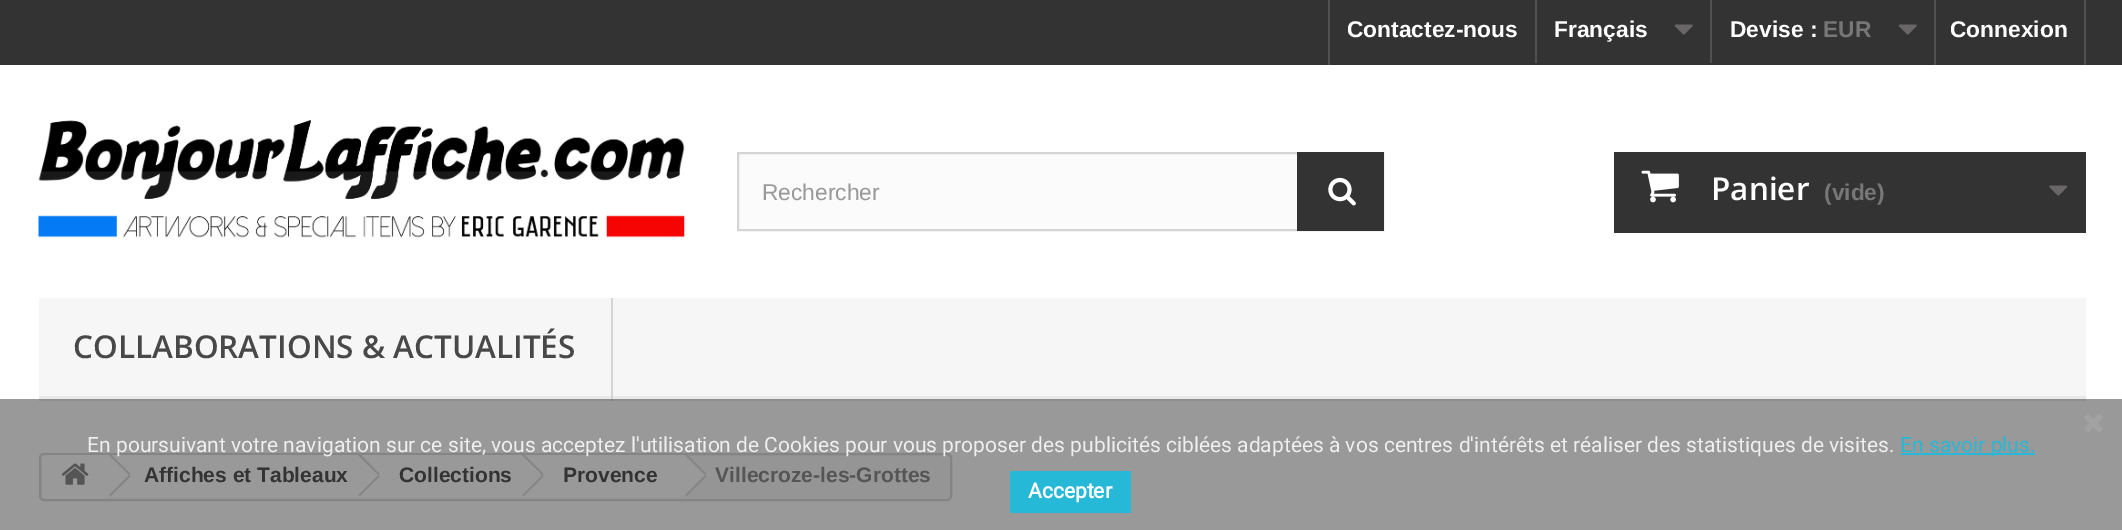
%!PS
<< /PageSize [2122 530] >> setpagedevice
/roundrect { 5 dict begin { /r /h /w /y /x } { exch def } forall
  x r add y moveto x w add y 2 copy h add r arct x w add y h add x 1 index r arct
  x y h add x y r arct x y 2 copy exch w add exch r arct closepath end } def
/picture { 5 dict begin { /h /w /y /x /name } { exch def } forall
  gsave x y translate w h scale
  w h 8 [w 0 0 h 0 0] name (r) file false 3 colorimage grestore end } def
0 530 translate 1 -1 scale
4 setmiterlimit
1 setgray
0 0 2122 530 rectfill
0.6 setgray
0 399 2122 131 rectfill
0.2 setgray
0 0 2122 65 rectfill
0.318 setgray
1328 0 2 65 rectfill
/LiberationSans-Bold [22.75 0 0 -22.75 0 0] selectfont
1 setgray
1347 37 moveto (Contactez-nous) show
0.318 setgray
1535 0 2 63 rectfill
1 setgray
1554 37 moveto (Français) show
(img1.rgb) 1674 24 19 11 picture
0.318 setgray
1710 0 2 63 rectfill
1 setgray
1730 37 moveto (Devise :) show
0.467 setgray
1823 37 moveto (EUR) show
(img2.rgb) 1898 24 19 11 picture
0.318 setgray
2084 0 2 65 rectfill
1934 0 2 65 rectfill
1 setgray
1950 37 moveto (Connexion) show
(img3.rgb) 38 120 647 118 picture
0.984 setgray
739 154 558 75 rectfill
0.839 0.831 0.831 setrgbcolor
2 setlinewidth
738 153 645 77 rectstroke
/LiberationSans-Regular [22.75 0 0 -22.75 0 0] selectfont
0.6 setgray
762 200 moveto (Rechercher) show
0.2 setgray
1297 152 87 79 rectfill
(img4.rgb) 1328 177 28 29 picture
1614 152 472 81 rectfill
(img5.rgb) 1641 170 38 33 picture
/OpenSans-SemiBold [31.5 0 0 -31.5 0 0] selectfont
1 setgray
1711 200 moveto (Panier) show
/LiberationSans-Bold [22.75 0 0 -22.75 0 0] selectfont
0.467 setgray
1824 200 moveto (\(vide\)) show
(img6.rgb) 2049 185 19 11 picture
0.965 setgray
39 298 2047 98 rectfill
0.914 setgray
39 396 2047 3 rectfill
0.557 setgray
39 399 2047 2 rectfill
0.839 0.831 0.831 setrgbcolor
611 298 2 103 rectfill
0.522 0.518 0.518 setrgbcolor
611 399 2 2 rectfill
/OpenSans-SemiBold [31.5 0 0 -31.5 0 0] selectfont
0.282 setgray
73 358 moveto (COLLABORATIONS & ACTUALITÉS) show
0.584 setgray
40 454 911 46 4 roundrect gsave fill grestore
0.522 0.518 0.518 setrgbcolor
stroke
0.6 setgray
newpath 47 455 moveto 109 455 lineto 109 499 lineto 47 499 lineto 44 499 42 497 42 494 curveto 42 460 lineto 42 457 44 455 47 455 curveto closepath fill
(img7.rgb) 61 463 28 22 picture
109 455 252 42 rectfill
0.522 0.518 0.518 setrgbcolor
newpath 111.5 455 moveto 130.5 474 lineto 129 475 lineto 109.5 455.5 lineto 110 455 lineto closepath 129 475 moveto 130.5 476.5 lineto 110.5 496 lineto 109.5 495 lineto closepath fill
/LiberationSans-Bold [21 0 0 -21 0 0] selectfont
0.2 setgray
144 482 moveto (Affiches et Tableaux) show
0.6 setgray
newpath 379 455 moveto 374 455 lineto 356 473 lineto 355 474 355 476 356 478 curveto 374 495 lineto 375 496 377 496 379 495 curveto 396 478 lineto 397 476 397 474 396 473 curveto closepath fill
361 455 164 42 rectfill
0.522 0.518 0.518 setrgbcolor
newpath 361 455 moveto 379.5 474 lineto 378.5 475 lineto 358.5 455.5 lineto 359 455 lineto closepath 378.5 475 moveto 379.5 476.5 lineto 360 496 lineto 358.5 495 lineto closepath fill
0.2 setgray
399 482 moveto (Collections) show
0.6 setgray
newpath 542 455 moveto 538 455 lineto 520 473 lineto 519 474 519 476 520 478 curveto 538 495 lineto 539 496 541 496 542 495 curveto 560 478 lineto 561 476 561 474 560 473 curveto closepath fill
525 455 159 42 rectfill
0.522 0.518 0.518 setrgbcolor
newpath 524.5 455 moveto 543.5 474 lineto 542.5 475 lineto 522.5 455.5 lineto 523 455 lineto closepath 542.5 475 moveto 543.5 476.5 lineto 523.5 496 lineto 522.5 495 lineto closepath fill
0.2 setgray
563 482 moveto (Provence) show
0.6 setgray
newpath 688 455 moveto 683 455 lineto 665 474 lineto 663 477 673 485 674 486 curveto 688 500 685 498 699 484 curveto 701 482 708 476 705 473 curveto closepath fill
0.522 0.518 0.518 setrgbcolor
newpath 687.5 455 moveto 706.5 474 lineto 705 475 lineto 685.5 455.5 lineto 686 455 lineto closepath 705 475 moveto 706.5 476.5 lineto 686.5 496 lineto 685.5 495 lineto closepath fill
0.333 setgray
715 482 moveto (Villecroze-les-Grottes) show
(img8.rgb) 2084 414 19 19 picture
/Roboto-Regular [21 0 0 -21 0 0] selectfont
0.937 setgray
87 452 moveto (En poursuivant votre navigation sur ce site, vous acceptez l'utilisation de Cookies pour vous proposer des publicités ciblées adaptées à vos centres d'intérêts et réaliser des statistiques de visites.) show
0.145 0.725 0.843 setrgbcolor
1901 453 134 2 rectfill
1900 452 moveto (En savoir plus.) show
1010 471 121 42 rectfill
/Roboto-Bold [21 0 0 -21 0 0] selectfont
1 setgray
1028 498 moveto (Accepter) show
showpage
